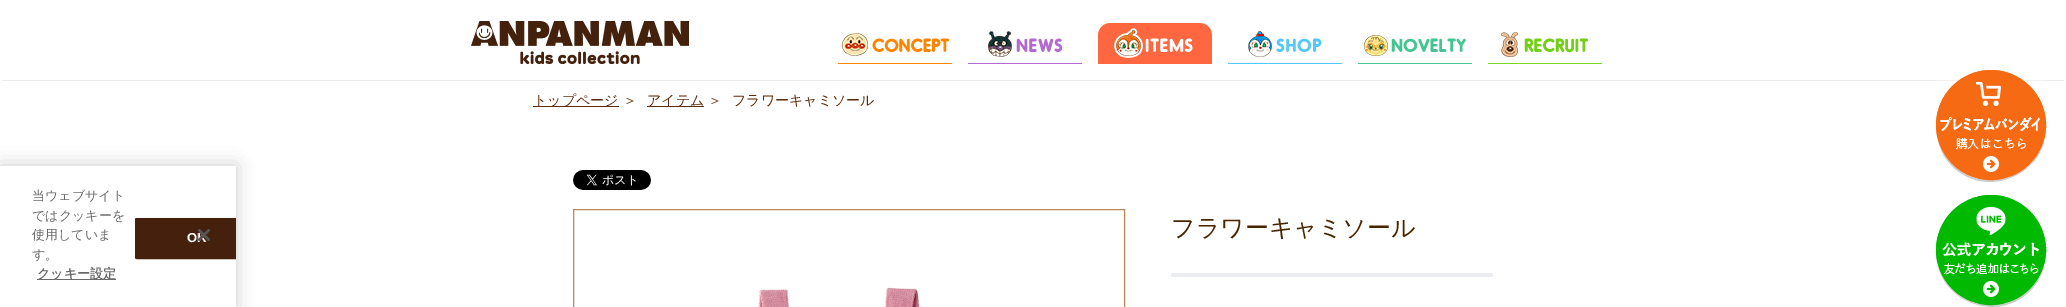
%!PS
<< /PageSize [2066 307] /PageUsesTransparency true >> setpagedevice
/alpha { dup .setfillconstantalpha .setstrokeconstantalpha } def
/roundrect { 5 dict begin { /r /h /w /y /x } { exch def } forall
  x r add y moveto x w add y 2 copy h add r arct x w add y h add x 1 index r arct
  x y h add x y r arct x y 2 copy exch w add exch r arct closepath end } def
/shadow { 12 dict begin { /a /b /q /h /w /y /x } { exch def } forall gsave /was 0 def
  9 -2 -9 { dup b mul 4 div /e exch def 1 sub .425 mul 2.718 exch exp 1 add a .99 .min exch div /now exch def
    1 1 now sub 1 was sub div sub alpha /was now def
    w h .min e 2 mul add 0 gt { x e sub y e sub w e 2 mul add h e 2 mul add
      q e add b .6 mul add w h .min 2 div e add .min 0 .max roundrect fill } if } for grestore end } def
/picture { 5 dict begin { /h /w /y /x /name } { exch def } forall
  gsave x y translate w h scale
  w h 8 [w 0 0 h 0 0] name (r) file false 3 colorimage grestore end } def
0 .pushpdf14devicefilter
0 307 translate 1 -1 scale
4 setmiterlimit
1 setgray
0 0 2066 307 rectfill
gsave
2 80 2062 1 rectclip
0 setgray
2 3 2062 76 0 1 1 shadow
grestore
(img1.rgb) 471 21 218 43 picture
(img2.rgb) 838 33 114 31 picture
(img3.rgb) 968 31 114 33 picture
(img4.rgb) 1098 23 114 41 picture
(img5.rgb) 1228 31 114 33 picture
(img6.rgb) 1358 35 114 29 picture
(img7.rgb) 1488 32 114 32 picture
0.804 0.8 0.8 setrgbcolor
newpath 1936 126 moveto 1936 137 1939 148 1945 158 curveto 1976 203 2047 180 2046 126 curveto 2045 156 2021 180 1991 180 curveto 1961 180 1937 156 1936 126 curveto closepath fill
(img8.rgb) 1936 70 110 110 picture
0.969 0.416 0.078 setrgbcolor
2 setlinewidth
newpath 1991 125 54 0 360 arc closepath stroke
(img9.rgb) 1940 82 100 90 picture
0.804 0.8 0.8 setrgbcolor
newpath 1936 251 moveto 1935 305 2006 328 2037 283 curveto 2043 273 2046 262 2046 251 curveto 2045 281 2021 305 1991 305 curveto 1961 305 1937 281 1936 251 curveto closepath fill
(img10.rgb) 1936 195 110 110 picture
0 0.725 0 setrgbcolor
newpath 1991 250 54 0 360 arc closepath stroke
(img11.rgb) 1942 207 97 90 picture
0.369 0.165 0.039 setrgbcolor
533 106 86 1 rectfill
/WenQuanYiZenHei-Medium [14 0 0 -14 0 0] selectfont
533 105 moveto (トップページ) show
623 105 moveto (＞) show
647 106 57 1 rectfill
647 105 moveto (アイテム) show
708 105 moveto (＞) show
732 105 moveto (フラワーキャミソール) show
gsave
newpath 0 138 moveto 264 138 lineto 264 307 lineto 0 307 lineto closepath 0 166 moveto 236 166 lineto 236 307 lineto 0 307 lineto closepath eoclip newpath
0 setgray
0 166 236 141 0 9 0.2 shadow
grestore
/WenQuanYiZenHei-Medium [13 0 0 -13 0 0] selectfont
0.412 setgray
32 200 moveto (当ウェブサイト) show
32 220 moveto (ではクッキーを) show
32 239 moveto (使用していま) show
32 259 moveto (す。) show
37 279 79 1 rectfill
/WenQuanYiZenHei-Bold [13 0 0 -13 0 0] selectfont
37 278 moveto (クッキー設定) show
0.271 0.125 0.051 setrgbcolor
newpath 137 218 moveto 236 218 lineto 236 259 lineto 137 259 lineto 136 259 135 258 135 257 curveto 135 220 lineto 135 219 136 218 137 218 curveto closepath fill
gsave
0 166 236 141 rectclip
1 setlinewidth
135.5 218.5 124 40 1.5 roundrect stroke
grestore
/LiberationSans-Bold [13 0 0 -13 0 0] selectfont
1 setgray
187 242 moveto (OK) show
(img12.rgb) 198 229 12 12 picture
(img13.rgb) 573 170 78 20 picture
0.722 0.533 0.333 setrgbcolor
1 setlinewidth
573.5 209.5 551 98 rectstroke
(img14.rgb) 758 287 162 20 picture
/WenQuanYiZenHei-Medium [24 0 0 -24 0 0] selectfont
0.282 0.145 0 setrgbcolor
1171 236 moveto (フラワーキャミソール) show
0.922 0.925 0.937 setrgbcolor
1171 273 322 4 2 roundrect fill
.poppdf14devicefilter showpage
